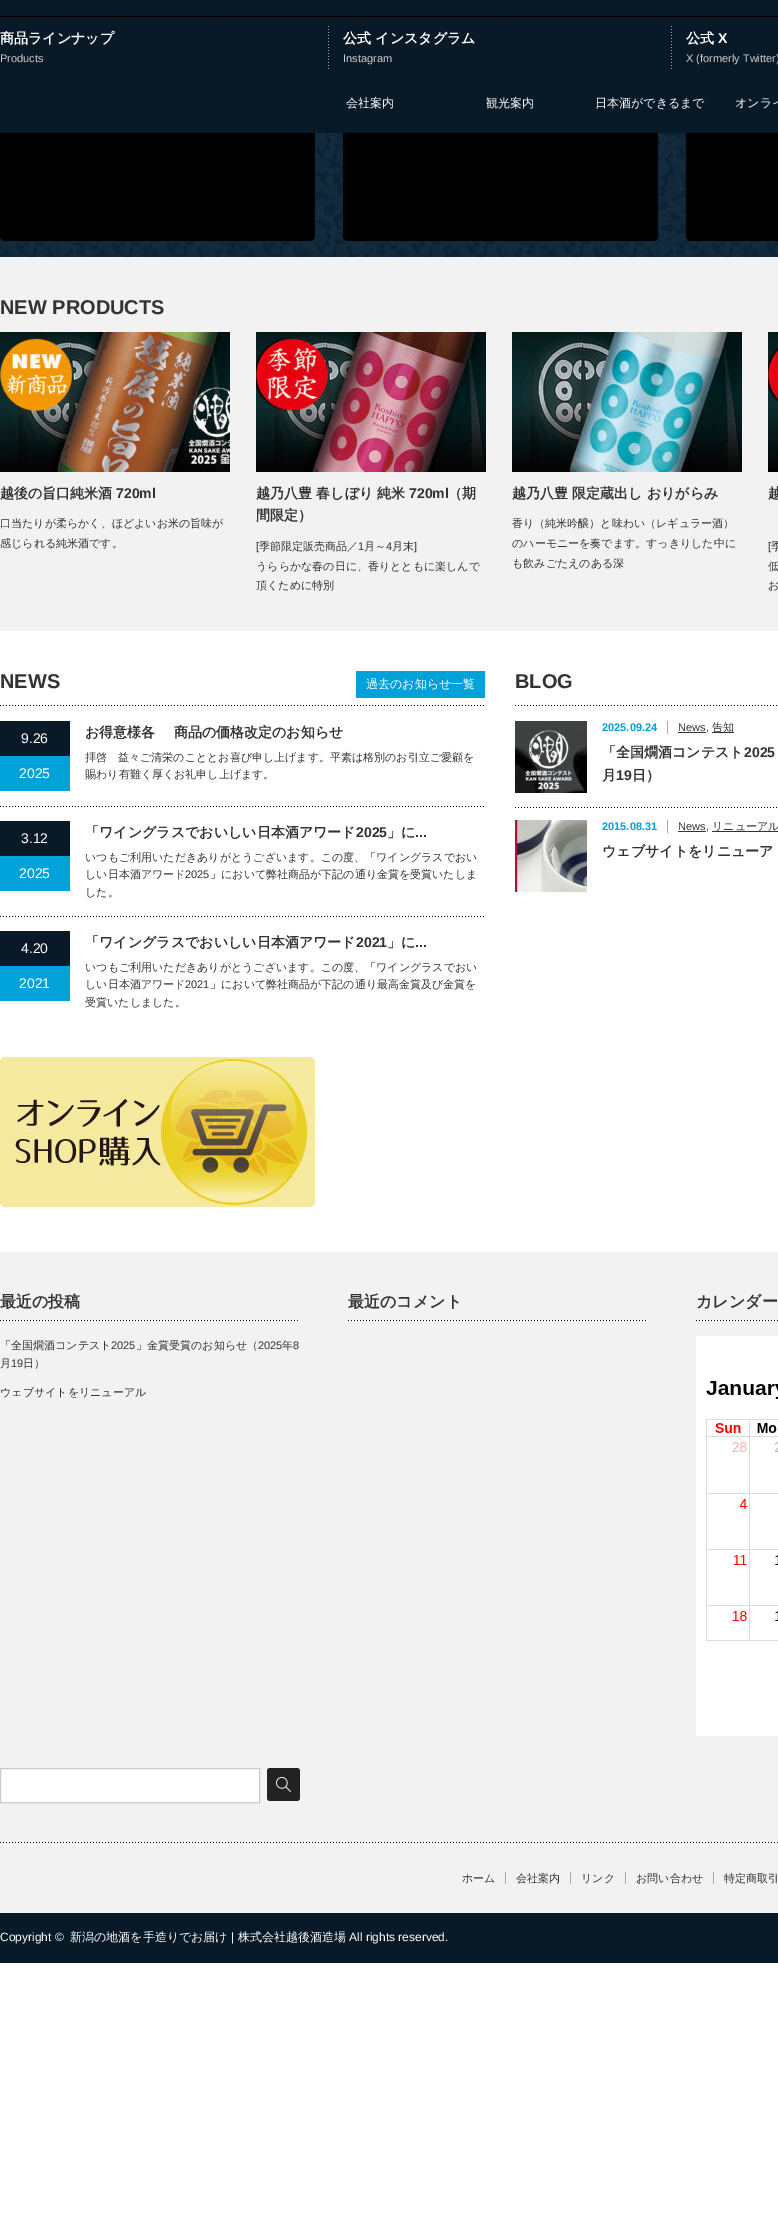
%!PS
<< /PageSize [778 2217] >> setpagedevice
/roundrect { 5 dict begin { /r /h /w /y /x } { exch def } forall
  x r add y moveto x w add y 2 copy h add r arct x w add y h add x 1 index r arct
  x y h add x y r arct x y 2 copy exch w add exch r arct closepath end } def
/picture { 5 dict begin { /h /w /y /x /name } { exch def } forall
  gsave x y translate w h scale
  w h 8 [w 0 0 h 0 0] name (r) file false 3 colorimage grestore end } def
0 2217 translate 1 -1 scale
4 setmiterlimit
1 setgray
0 0 778 2217 rectfill
(img1.rgb) 0 0 778 16 picture
(img2.rgb) 0 16 778 241 picture
/WenQuanYiZenHei-Bold [14 0 0 -14 0 0] selectfont
0 43 moveto (商品ラインナップ) show
/LiberationSans-Regular [11 0 0 -11 0 0] selectfont
0.8 setgray
0 62 moveto (Products) show
0 setgray
0 91 315 150 5 roundrect fill
(img3.rgb) 328 26 1 43 picture
/WenQuanYiZenHei-Bold [14 0 0 -14 0 0] selectfont
1 setgray
343 43 moveto (公式 インスタグラム) show
/LiberationSans-Regular [11 0 0 -11 0 0] selectfont
0.8 setgray
343 62 moveto (Instagram) show
0 setgray
343 91 315 150 5 roundrect fill
(img3.rgb) 671 26 1 43 picture
/WenQuanYiZenHei-Bold [14 0 0 -14 0 0] selectfont
1 setgray
686 43 moveto (公式) show
/LiberationSans-Bold [14 0 0 -14 0 0] selectfont
718 43 moveto (X) show
/LiberationSans-Regular [11 0 0 -11 0 0] selectfont
0.8 setgray
686 62 moveto (X \(formerly Twitter\)) show
0 setgray
686 91 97 150 5 roundrect fill
0.031 0.102 0.157 setrgbcolor
0 74 778 59 rectfill
/WenQuanYiZenHei-Medium [12 0 0 -12 0 0] selectfont
1 setgray
346 107 moveto (会社案内) show
486 107 moveto (観光案内) show
595 107 moveto (日本酒ができるまで) show
735 107 moveto (オンライ) show
0.949 setgray
0 257 778 374 rectfill
/LiberationSans-Bold [20 0 0 -20 0 0] selectfont
0.2 setgray
0 314 moveto (NEW PRODUCTS) show
(img4.rgb) 0 332 230 140 picture
/WenQuanYiZenHei-Bold [14 0 0 -14 0 0] selectfont
0 498 moveto (越後の旨口純米酒) show
/LiberationSans-Bold [14 0 0 -14 0 0] selectfont
116 498 moveto (720ml) show
/WenQuanYiZenHei-Medium [11 0 0 -11 0 0] selectfont
0 527 moveto (口当たりが柔らかく、ほどよいお米の旨味が) show
0 547 moveto (感じられる純米酒です。) show
(img5.rgb) 256 332 230 140 picture
/WenQuanYiZenHei-Bold [14 0 0 -14 0 0] selectfont
256 498 moveto (越乃八豊 春しぼり 純米) show
/LiberationSans-Bold [14 0 0 -14 0 0] selectfont
409 498 moveto (720ml) show
/WenQuanYiZenHei-Bold [14 0 0 -14 0 0] selectfont
448 498 moveto (（期) show
256 520 moveto (間限定）) show
/LiberationSans-Regular [11 0 0 -11 0 0] selectfont
256 550 moveto ([) show
/WenQuanYiZenHei-Medium [11 0 0 -11 0 0] selectfont
259 550 moveto (季節限定販売商品／) show
/LiberationSans-Regular [11 0 0 -11 0 0] selectfont
358 550 moveto (1) show
/WenQuanYiZenHei-Medium [11 0 0 -11 0 0] selectfont
364 550 moveto (月～) show
/LiberationSans-Regular [11 0 0 -11 0 0] selectfont
386 550 moveto (4) show
/WenQuanYiZenHei-Medium [11 0 0 -11 0 0] selectfont
392 550 moveto (月末) show
/LiberationSans-Regular [11 0 0 -11 0 0] selectfont
414 550 moveto (]) show
/WenQuanYiZenHei-Medium [11 0 0 -11 0 0] selectfont
256 570 moveto (うららかな春の日に、香りとともに楽しんで) show
256 589 moveto (頂くために特別) show
(img6.rgb) 512 332 230 140 picture
/WenQuanYiZenHei-Bold [14 0 0 -14 0 0] selectfont
512 498 moveto (越乃八豊 限定蔵出し おりがらみ) show
/WenQuanYiZenHei-Medium [11 0 0 -11 0 0] selectfont
512 527 moveto (香り（純米吟醸）と味わい（レギュラー酒）) show
512 547 moveto (のハーモニーを奏でます。すっきりした中に) show
512 567 moveto (も飲みごたえのある深) show
0 setgray
768 468 10 4 rectfill
(img7.rgb) 768 332 10 136 picture
/WenQuanYiZenHei-Bold [14 0 0 -14 0 0] selectfont
0.2 setgray
768 498 moveto (越) show
/LiberationSans-Regular [11 0 0 -11 0 0] selectfont
768 550 moveto ([) show
/WenQuanYiZenHei-Medium [11 0 0 -11 0 0] selectfont
771 550 moveto (季) show
768 570 moveto (低) show
768 589 moveto (お) show
(img8.rgb) 0 705 484 1 picture
/LiberationSans-Bold [20 0 0 -20 0 0] selectfont
0 688 moveto (NEWS) show
0 0.635 0.851 setrgbcolor
356 671 129 27 rectfill
/WenQuanYiZenHei-Medium [12 0 0 -12 0 0] selectfont
1 setgray
366 688 moveto (過去のお知らせ一覧) show
(img8.rgb) 0 806 484 1 picture
0.035 0.098 0.157 setrgbcolor
0 721 70 35 rectfill
/LiberationSans-Regular [14 0 0 -14 0 0] selectfont
1 setgray
21 743 moveto (9.26) show
0 0.635 0.851 setrgbcolor
0 756 70 35 rectfill
1 setgray
19 778 moveto (2025) show
/WenQuanYiZenHei-Bold [14 0 0 -14 0 0] selectfont
0.2 setgray
85 737 moveto (お得意様各　 商品の価格改定のお知らせ) show
/WenQuanYiZenHei-Medium [11 0 0 -11 0 0] selectfont
85 761 moveto (拝啓　益々ご清栄のこととお喜び申し上げます。平素は格別のお引立ご愛顧を) show
85 778 moveto (賜わり有難く厚くお礼申し上げます。) show
(img8.rgb) 0 916 484 1 picture
0.035 0.098 0.157 setrgbcolor
0 821 70 35 rectfill
/LiberationSans-Regular [14 0 0 -14 0 0] selectfont
1 setgray
21 843 moveto (3.12) show
0 0.635 0.851 setrgbcolor
0 856 70 35 rectfill
1 setgray
19 878 moveto (2025) show
/WenQuanYiZenHei-Bold [14 0 0 -14 0 0] selectfont
0.2 setgray
85 837 moveto (「ワイングラスでおいしい日本酒アワード) show
/LiberationSans-Bold [14 0 0 -14 0 0] selectfont
356 837 moveto (2025) show
/WenQuanYiZenHei-Bold [14 0 0 -14 0 0] selectfont
387 837 moveto (」に) show
/LiberationSans-Bold [14 0 0 -14 0 0] selectfont
415 837 moveto (...) show
/WenQuanYiZenHei-Medium [11 0 0 -11 0 0] selectfont
85 861 moveto (いつもご利用いただきありがとうございます。この度、「ワイングラスでおい) show
85 878 moveto (しい日本酒アワード) show
/LiberationSans-Regular [11 0 0 -11 0 0] selectfont
185 878 moveto (2025) show
/WenQuanYiZenHei-Medium [11 0 0 -11 0 0] selectfont
210 878 moveto (」において弊社商品が下記の通り金賞を受賞いたしま) show
85 896 moveto (した。) show
0.035 0.098 0.157 setrgbcolor
0 931 70 35 rectfill
/LiberationSans-Regular [14 0 0 -14 0 0] selectfont
1 setgray
21 953 moveto (4.20) show
0 0.635 0.851 setrgbcolor
0 966 70 35 rectfill
1 setgray
19 988 moveto (2021) show
/WenQuanYiZenHei-Bold [14 0 0 -14 0 0] selectfont
0.2 setgray
85 947 moveto (「ワイングラスでおいしい日本酒アワード) show
/LiberationSans-Bold [14 0 0 -14 0 0] selectfont
356 947 moveto (2021) show
/WenQuanYiZenHei-Bold [14 0 0 -14 0 0] selectfont
387 947 moveto (」に) show
/LiberationSans-Bold [14 0 0 -14 0 0] selectfont
415 947 moveto (...) show
/WenQuanYiZenHei-Medium [11 0 0 -11 0 0] selectfont
85 971 moveto (いつもご利用いただきありがとうございます。この度、「ワイングラスでおい) show
85 988 moveto (しい日本酒アワード) show
/LiberationSans-Regular [11 0 0 -11 0 0] selectfont
185 988 moveto (2021) show
/WenQuanYiZenHei-Medium [11 0 0 -11 0 0] selectfont
210 988 moveto (」において弊社商品が下記の通り最高金賞及び金賞を) show
85 1006 moveto (受賞いたしました。) show
(img9.rgb) 515 705 262 1 picture
/LiberationSans-Bold [20 0 0 -20 0 0] selectfont
515 688 moveto (BLOG) show
(img9.rgb) 515 807 262 1 picture
(img10.rgb) 515 721 72 72 picture
0.667 setgray
667 721 1 13 rectfill
/LiberationSans-Bold [11 0 0 -11 0 0] selectfont
0 0.635 0.851 setrgbcolor
602 731 moveto (2025.09.24) show
0.2 setgray
678 732 28 1 rectfill
/LiberationSans-Regular [11 0 0 -11 0 0] selectfont
678 731 moveto (News,) show
712 732 22 1 rectfill
/WenQuanYiZenHei-Medium [11 0 0 -11 0 0] selectfont
712 731 moveto (告知) show
/WenQuanYiZenHei-Bold [14 0 0 -14 0 0] selectfont
602 757 moveto (「全国燗酒コンテスト) show
/LiberationSans-Bold [14 0 0 -14 0 0] selectfont
744 757 moveto (2025) show
/WenQuanYiZenHei-Bold [14 0 0 -14 0 0] selectfont
602 780 moveto (月) show
/LiberationSans-Bold [14 0 0 -14 0 0] selectfont
616 780 moveto (19) show
/WenQuanYiZenHei-Bold [14 0 0 -14 0 0] selectfont
632 780 moveto (日）) show
(img11.rgb) 515 820 72 72 picture
0.667 setgray
667 820 1 13 rectfill
/LiberationSans-Bold [11 0 0 -11 0 0] selectfont
0 0.635 0.851 setrgbcolor
602 830 moveto (2015.08.31) show
0.2 setgray
678 831 28 1 rectfill
/LiberationSans-Regular [11 0 0 -11 0 0] selectfont
678 830 moveto (News,) show
712 831 66 1 rectfill
/WenQuanYiZenHei-Medium [11 0 0 -11 0 0] selectfont
712 830 moveto (リニューアル) show
/WenQuanYiZenHei-Bold [14 0 0 -14 0 0] selectfont
602 856 moveto (ウェブサイトをリニューア) show
(img12.rgb) 0 1057 315 150 picture
0.949 setgray
0 1252 778 590 rectfill
(img13.rgb) 0 1842 778 1 picture
(img14.rgb) 0 1320 300 1 picture
/WenQuanYiZenHei-Bold [16 0 0 -16 0 0] selectfont
0.2 setgray
0 1307 moveto (最近の投稿) show
/WenQuanYiZenHei-Medium [11 0 0 -11 0 0] selectfont
0 1349 moveto (「全国燗酒コンテスト) show
/LiberationSans-Regular [11 0 0 -11 0 0] selectfont
111 1349 moveto (2025) show
/WenQuanYiZenHei-Medium [11 0 0 -11 0 0] selectfont
136 1349 moveto (」金賞受賞のお知らせ（) show
/LiberationSans-Regular [11 0 0 -11 0 0] selectfont
258 1349 moveto (2025) show
/WenQuanYiZenHei-Medium [11 0 0 -11 0 0] selectfont
282 1349 moveto (年) show
/LiberationSans-Regular [11 0 0 -11 0 0] selectfont
293 1349 moveto (8) show
/WenQuanYiZenHei-Medium [11 0 0 -11 0 0] selectfont
0 1367 moveto (月) show
/LiberationSans-Regular [11 0 0 -11 0 0] selectfont
11 1367 moveto (19) show
/WenQuanYiZenHei-Medium [11 0 0 -11 0 0] selectfont
23 1367 moveto (日）) show
0 1396 moveto (ウェブサイトをリニューアル) show
(img14.rgb) 348 1320 300 1 picture
/WenQuanYiZenHei-Bold [16 0 0 -16 0 0] selectfont
348 1307 moveto (最近のコメント) show
(img15.rgb) 696 1320 82 1 picture
696 1307 moveto (カレンダー) show
(img16.rgb) 696 1336 82 400 picture
1 setgray
newpath 0.5 1768.5 moveto 259.5 1768.5 lineto 259.5 1802.5 lineto 0.5 1802.5 lineto closepath gsave fill grestore
0.8 setgray
stroke
0.133 setgray
267 1768 33 33 3 roundrect fill
(img17.rgb) 276 1777 15 15 picture
0.949 setgray
0 1843 778 70 rectfill
/WenQuanYiZenHei-Medium [11 0 0 -11 0 0] selectfont
0.2 setgray
462 1882 moveto (ホーム) show
0.667 setgray
505 1872 1 12 rectfill
0.2 setgray
516 1882 moveto (会社案内) show
0.667 setgray
570 1872 1 12 rectfill
0.2 setgray
581 1882 moveto (リンク) show
0.667 setgray
625 1872 1 12 rectfill
0.2 setgray
636 1882 moveto (お問い合わせ) show
0.667 setgray
713 1872 1 12 rectfill
0.2 setgray
724 1882 moveto (特定商取引) show
0.031 0.102 0.157 setrgbcolor
0 1913 778 50 rectfill
/LiberationSans-Regular [12 0 0 -12 0 0] selectfont
1 setgray
0 1941 moveto (Copyright ©) show
/WenQuanYiZenHei-Medium [12 0 0 -12 0 0] selectfont
70 1941 moveto (新潟の地酒を手造りでお届け) show
/LiberationSans-Regular [12 0 0 -12 0 0] selectfont
231 1941 moveto (|) show
/WenQuanYiZenHei-Medium [12 0 0 -12 0 0] selectfont
238 1941 moveto (株式会社越後酒造場) show
/LiberationSans-Regular [12 0 0 -12 0 0] selectfont
349 1941 moveto (All rights reserved.) show
showpage
